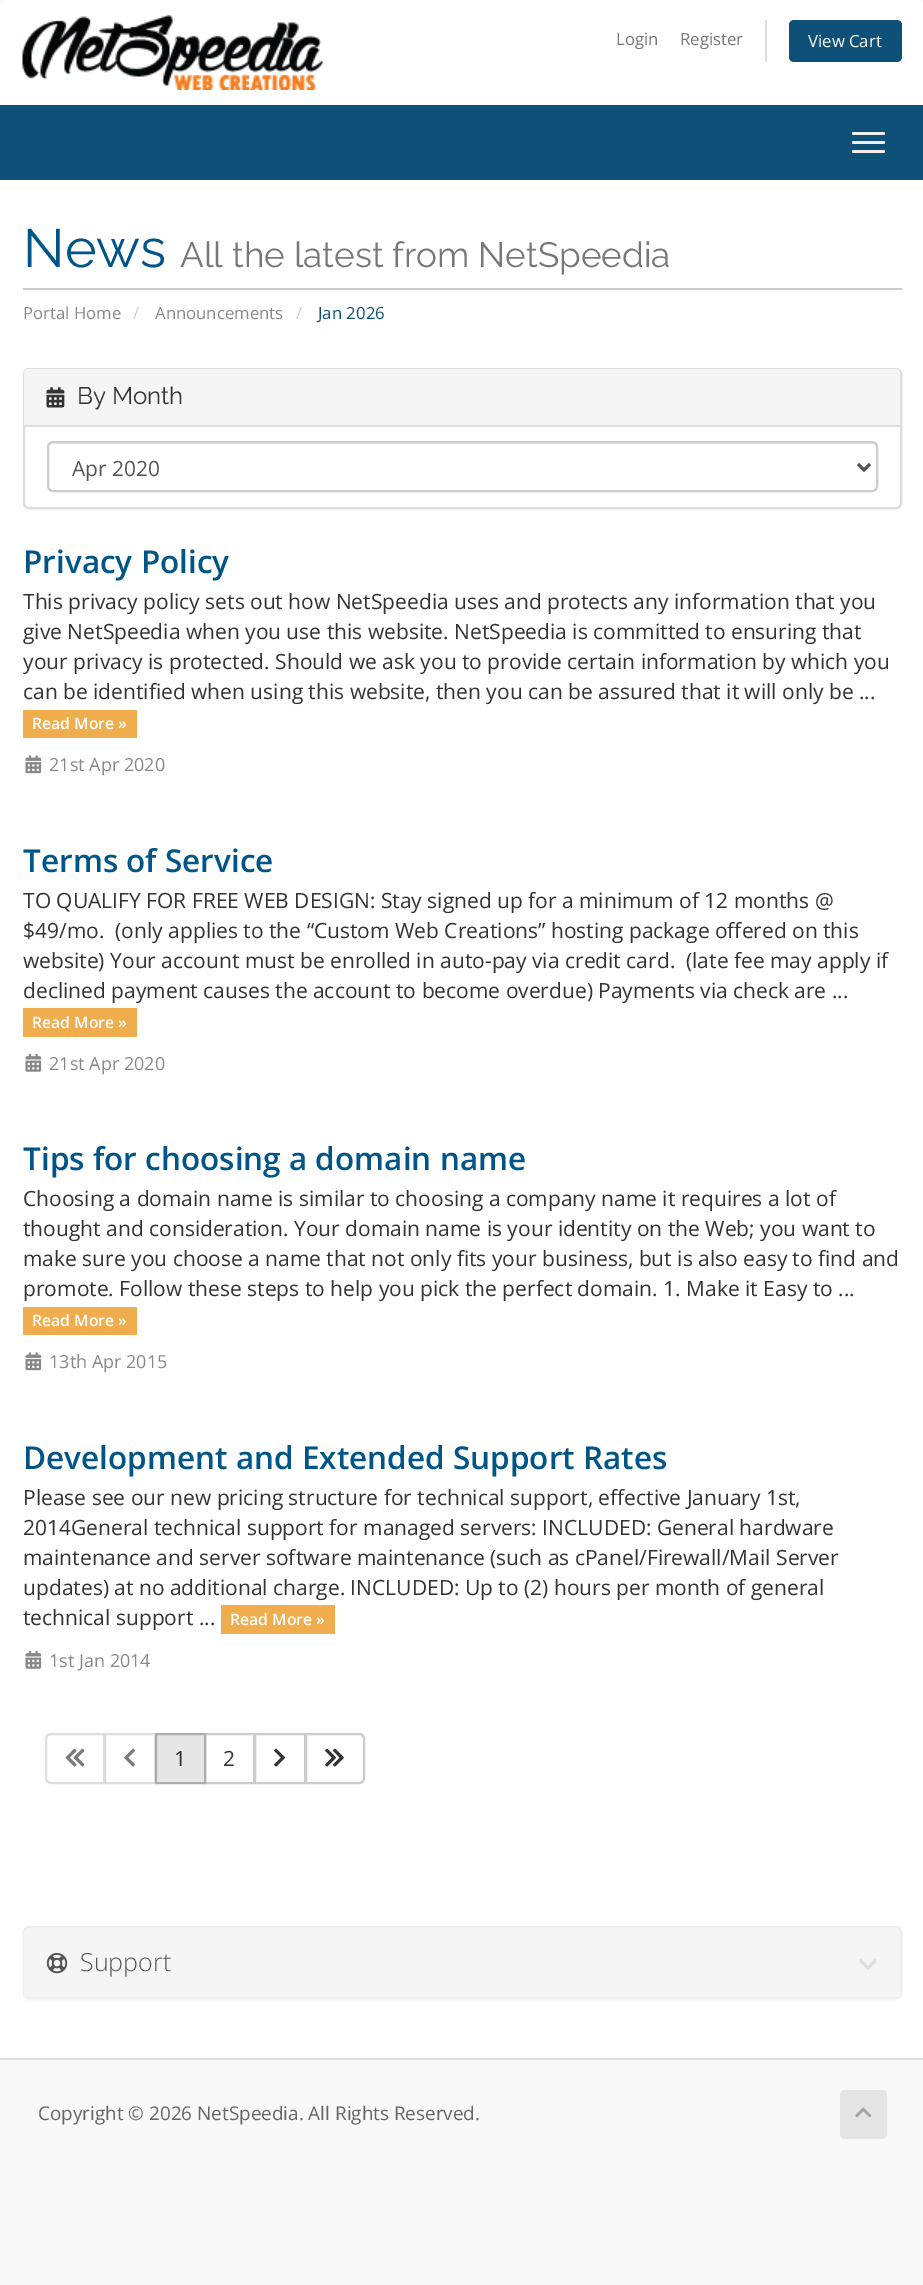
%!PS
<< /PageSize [923 2285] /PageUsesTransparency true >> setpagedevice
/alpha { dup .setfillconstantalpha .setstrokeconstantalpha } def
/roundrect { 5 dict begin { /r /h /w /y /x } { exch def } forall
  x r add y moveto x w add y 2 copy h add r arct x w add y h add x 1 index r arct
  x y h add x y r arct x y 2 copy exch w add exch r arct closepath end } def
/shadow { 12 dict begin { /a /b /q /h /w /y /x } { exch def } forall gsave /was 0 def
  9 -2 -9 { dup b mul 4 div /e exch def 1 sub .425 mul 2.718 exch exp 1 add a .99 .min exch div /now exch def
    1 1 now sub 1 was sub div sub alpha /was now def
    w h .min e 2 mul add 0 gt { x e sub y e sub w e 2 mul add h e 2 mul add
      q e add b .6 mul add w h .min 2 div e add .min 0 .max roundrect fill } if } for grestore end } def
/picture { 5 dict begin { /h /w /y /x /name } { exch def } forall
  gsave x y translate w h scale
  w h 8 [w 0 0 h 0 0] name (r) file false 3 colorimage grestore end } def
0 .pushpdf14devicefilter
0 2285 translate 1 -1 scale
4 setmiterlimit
0.973 setgray
0 0 923 2285 rectfill
1 setgray
newpath 8 0 moveto 916 0 lineto 920.5 0 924 3.5 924 8 curveto 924 105 lineto 0 105 lineto 0 8 lineto 0 3.5 3.5 0 8 0 curveto closepath fill
(img1.rgb) 22 15 301 75 picture
/OpenSans-Regular [16.75 0 0 -16.75 0 0] selectfont
0.467 setgray
616 45 moveto (Login) show
680 45 moveto (Register) show
0.867 setgray
765 20 2 42 rectfill
0.055 0.314 0.467 setrgbcolor
789 20 113 42 5 roundrect fill
1 setgray
808 47 moveto (View Cart) show
0.055 0.314 0.467 setrgbcolor
0 105 923 75 rectfill
0.933 setgray
852 132 33 3 1.5 roundrect fill
852 141 33 3 1.5 roundrect fill
852 150 33 3 1.5 roundrect fill
1 setgray
0 180 923 1878 rectfill
0.8 setgray
23 288 879 2 rectfill
/Raleway-Regular [54 0 0 -54 0 0] selectfont
0 0.333 0.533 setrgbcolor
23 267 moveto (News) show
/Raleway-Regular [35.1 0 0 -35.1 0 0] selectfont
0.467 setgray
180 267 moveto (All the latest from NetSpeedia) show
/OpenSans-Regular [16.75 0 0 -16.75 0 0] selectfont
0.533 setgray
23 319 moveto (Portal Home) show
0.8 setgray
133 319 moveto (/) show
0.533 setgray
155 319 moveto (Announcements) show
0.8 setgray
296 319 moveto (/) show
0.055 0.314 0.467 setrgbcolor
318 319 moveto (Jan 2026) show
0 setgray
23 369 879 141 6 1 0.05 shadow
1 setgray
24 369 877 139 5 roundrect gsave fill grestore
0.867 setgray
2 setlinewidth
stroke
0.961 setgray
newpath 29 369 moveto 895 369 lineto 898 369 900 371 900 374 curveto 900 426 lineto 24 426 lineto 24 374 lineto 24 371 26 369 29 369 curveto closepath fill
0.867 setgray
24 425 876 2 rectfill
(img2.rgb) 46 387 19 21 picture
/Raleway-Regular [24 0 0 -24 0 0] selectfont
0.2 setgray
77 404 moveto (By Month) show
0.925 setgray
newpath 52 444 moveto 872 444 lineto 874 444 876 446 876 448 curveto 876 445 874 443 871 443 curveto 53 443 lineto 50 443 48 445 48 448 curveto 48 446 50 444 52 444 curveto closepath fill
0.8 setgray
48 442 829 49 5 roundrect stroke
0.333 setgray
3 setlinewidth
newpath 858 464 moveto 864 470 lineto 870 464 lineto stroke
/OpenSans-Regular [21 0 0 -21 0 0] selectfont
72 476 moveto (Apr 2020) show
/OpenSans-SemiBold [31.5 0 0 -31.5 0 0] selectfont
0 0.333 0.533 setrgbcolor
23 573 moveto (Privacy Policy) show
/OpenSans-Regular [21 0 0 -21 0 0] selectfont
0.2 setgray
23 609 moveto (This privacy policy sets out how NetSpeedia uses and protects any information that you) show
23 639 moveto (give NetSpeedia when you use this website. NetSpeedia is committed to ensuring that) show
23 669 moveto (your privacy is protected. Should we ask you to provide certain information by which you) show
23 699 moveto (can be identified when using this website, then you can be assured that it will only be ...) show
0.941 0.678 0.306 setrgbcolor
23 710 114 28 rectfill
/OpenSans-SemiBold [15.75 0 0 -15.75 0 0] selectfont
1 setgray
32 729 moveto (Read More ») show
(img3.rgb) 25 755 17 19 picture
/OpenSans-Regular [18 0 0 -18 0 0] selectfont
0.533 setgray
49 771 moveto (21st Apr 2020) show
/OpenSans-SemiBold [31.5 0 0 -31.5 0 0] selectfont
0 0.333 0.533 setrgbcolor
23 872 moveto (Terms of Service) show
/OpenSans-Regular [21 0 0 -21 0 0] selectfont
0.2 setgray
23 908 moveto (TO QUALIFY FOR FREE WEB DESIGN: Stay signed up for a minimum of 12 months @) show
23 938 moveto ($49/mo.  \(only applies to the “Custom Web Creations” hosting package offered on this) show
23 968 moveto (website\) Your account must be enrolled in auto-pay via credit card.  \(late fee may apply if) show
23 998 moveto (declined payment causes the account to become overdue\) Payments via check are ...) show
0.941 0.678 0.306 setrgbcolor
23 1008 114 29 rectfill
/OpenSans-SemiBold [15.75 0 0 -15.75 0 0] selectfont
1 setgray
32 1028 moveto (Read More ») show
(img4.rgb) 25 1053 17 19 picture
/OpenSans-Regular [18 0 0 -18 0 0] selectfont
0.533 setgray
49 1070 moveto (21st Apr 2020) show
/OpenSans-SemiBold [31.5 0 0 -31.5 0 0] selectfont
0 0.333 0.533 setrgbcolor
23 1170 moveto (Tips for choosing a domain name) show
/OpenSans-Regular [21 0 0 -21 0 0] selectfont
0.2 setgray
23 1206 moveto (Choosing a domain name is similar to choosing a company name it requires a lot of) show
23 1236 moveto (thought and consideration. Your domain name is your identity on the Web; you want to) show
23 1266 moveto (make sure you choose a name that not only fits your business, but is also easy to find and) show
23 1296 moveto (promote. Follow these steps to help you pick the perfect domain. 1. Make it Easy to ...) show
0.941 0.678 0.306 setrgbcolor
23 1307 114 28 rectfill
/OpenSans-SemiBold [15.75 0 0 -15.75 0 0] selectfont
1 setgray
32 1326 moveto (Read More ») show
(img3.rgb) 25 1352 17 19 picture
/OpenSans-Regular [18 0 0 -18 0 0] selectfont
0.533 setgray
49 1368 moveto (13th Apr 2015) show
/OpenSans-SemiBold [31.5 0 0 -31.5 0 0] selectfont
0 0.333 0.533 setrgbcolor
23 1469 moveto (Development and Extended Support Rates) show
/OpenSans-Regular [21 0 0 -21 0 0] selectfont
0.2 setgray
23 1505 moveto (Please see our new pricing structure for technical support, effective January 1st,) show
23 1535 moveto (2014General technical support for managed servers: INCLUDED: General hardware) show
23 1565 moveto (maintenance and server software maintenance \(such as cPanel/Firewall/Mail Server) show
23 1595 moveto (updates\) at no additional charge. INCLUDED: Up to \(2\) hours per month of general) show
23 1625 moveto (technical support ...) show
0.941 0.678 0.306 setrgbcolor
221 1605 114 29 rectfill
/OpenSans-SemiBold [15.75 0 0 -15.75 0 0] selectfont
1 setgray
230 1625 moveto (Read More ») show
(img4.rgb) 25 1650 17 19 picture
/OpenSans-Regular [18 0 0 -18 0 0] selectfont
0.533 setgray
49 1667 moveto (1st Jan 2014) show
0.871 setgray
2 setlinewidth
newpath 51 1734 moveto 104 1734 lineto 104 1783 lineto 51 1783 lineto 48 1783 46 1781 46 1778 curveto 46 1739 lineto 46 1736 48 1734 51 1734 curveto closepath stroke
(img5.rgb) 65 1748 20 19 picture
0.65 alpha
1 setgray
104 1733 1 51 rectfill
0.8 setgray
105 1734 50 49 rectstroke
1 alpha
(img6.rgb) 124 1748 11 19 picture
205 1734 49 49 rectstroke
0.902 setgray
newpath 156 1734 moveto 205 1734 lineto 205 1783 lineto 156 1783 lineto closepath gsave fill grestore
0.678 setgray
stroke
/OpenSans-Regular [21 0 0 -21 0 0] selectfont
0.2 setgray
174 1766 moveto (1) show
223 1766 moveto (2) show
0.8 setgray
255 1734 50 49 rectstroke
(img7.rgb) 274 1748 11 19 picture
1 setgray
newpath 306 1734 moveto 359 1734 lineto 362 1734 364 1736 364 1739 curveto 364 1778 lineto 364 1781 362 1783 359 1783 curveto 306 1783 lineto closepath gsave fill grestore
0.8 setgray
stroke
(img8.rgb) 325 1748 19 19 picture
0 setgray
23 1928 879 72 6 1 0.05 shadow
1 setgray
24 1927 877 70 5 roundrect gsave fill grestore
0.933 setgray
stroke
0.961 setgray
newpath 29 1928 moveto 895 1928 lineto 898 1928 900 1930 900 1933 curveto 900 1997 lineto 24 1997 lineto 24 1933 lineto 24 1930 26 1928 29 1928 curveto closepath fill
(img9.rgb) 46 1952 22 22 picture
/OpenSans-Light [25 0 0 -25 0 0] selectfont
0.333 setgray
80 1971 moveto (Support) show
(img10.rgb) 859 1959 18 11 picture
0.867 setgray
0 2058 923 2 rectfill
/OpenSans-Regular [18.9 0 0 -18.9 0 0] selectfont
0.4 setgray
38 2120 moveto (Copyright © 2026 NetSpeedia. All Rights Reserved.) show
0.898 setgray
840 2090 47 49 5 roundrect fill
(img11.rgb) 855 2107 17 11 picture
.poppdf14devicefilter showpage
